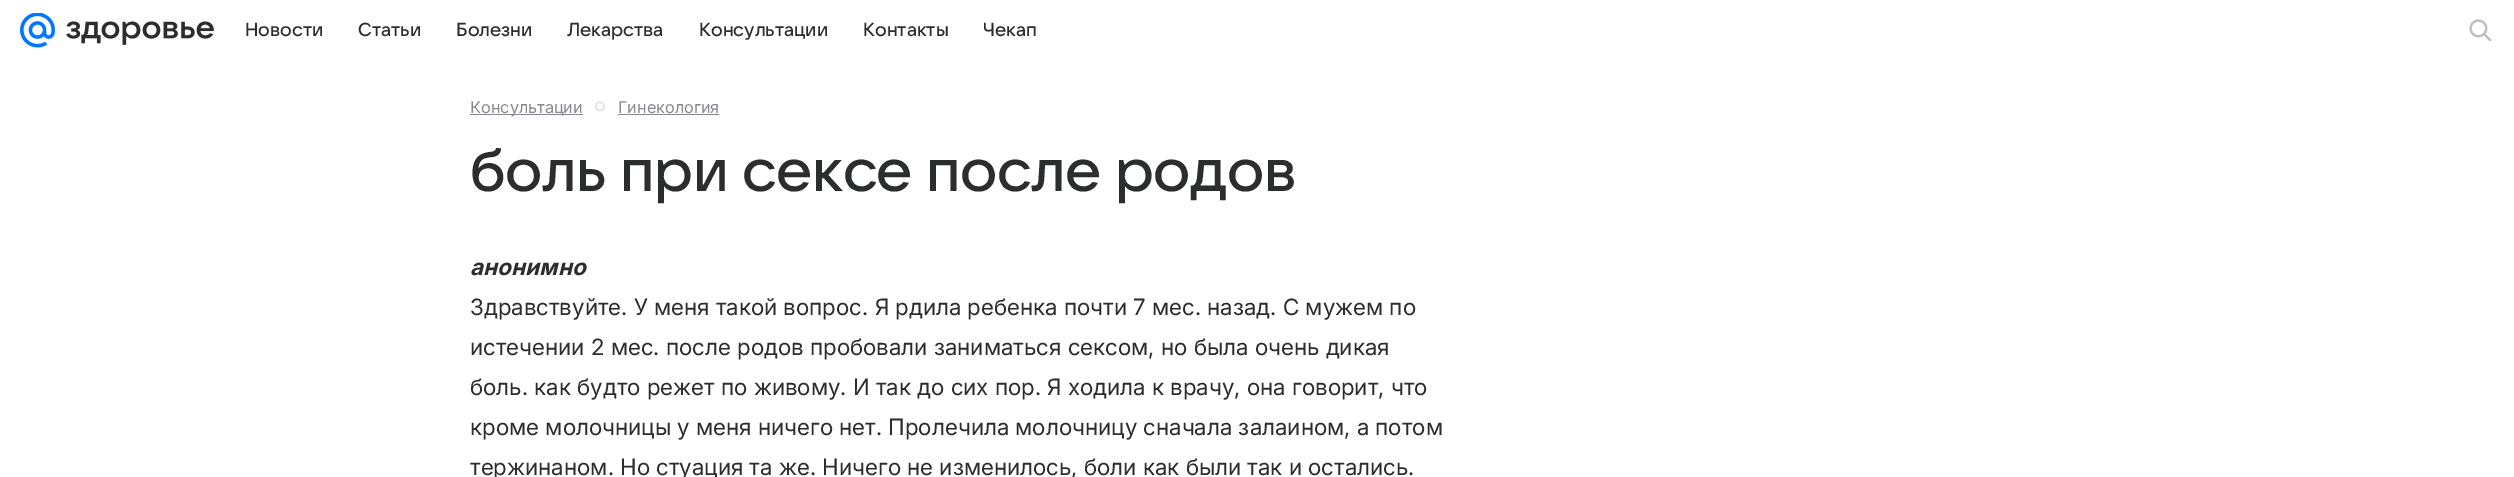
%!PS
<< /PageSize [2514 477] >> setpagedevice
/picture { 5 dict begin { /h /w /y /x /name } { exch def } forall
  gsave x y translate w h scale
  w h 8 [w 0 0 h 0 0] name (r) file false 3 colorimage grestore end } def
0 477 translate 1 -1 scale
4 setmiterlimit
1 setgray
0 0 2514 477 rectfill
(img1.rgb) 20 13 35 35 picture
(img2.rgb) 66 21 148 24 picture
/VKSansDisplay-Medium [18.75 0 0 -18.75 0 0] selectfont
0.173 0.176 0.18 setrgbcolor
245 36 moveto (Новости) show
358 36 moveto (Статьи) show
456 36 moveto (Болезни) show
567 36 moveto (Лекарства) show
699 36 moveto (Консультации) show
863 36 moveto (Контакты) show
983 36 moveto (Чекап) show
(img3.rgb) 2469 19 23 23 picture
0.529 0.537 0.561 setrgbcolor
470 114 113 1 rectfill
/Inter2-Regular [16.25 0 0 -16.25 0 0] selectfont
470 113 moveto (Консультации) show
(img4.rgb) 595 101 10 11 picture
618 113 moveto (Гинекология) show
618 114 101 1 rectfill
/VKSansDisplay-Medium [60 0 0 -60 0 0] selectfont
0.173 0.176 0.18 setrgbcolor
470 191 moveto -0.3 0 (боль при сексе после родов) ashow
/Inter-BoldItalic [22.5 0 0 -22.5 0 0] selectfont
470 275 moveto 0.07 0 (анонимно) ashow
/Inter-Regular [22.5 0 0 -22.5 0 0] selectfont
470 315 moveto 0.07 0 (Здравствуйте. У меня такой вопрос. Я рдила ребенка почти 7 мес. назад. С мужем по) ashow
470 355 moveto 0.07 0 (истечении 2 мес. после родов пробовали заниматься сексом, но была очень дикая) ashow
470 395 moveto 0.07 0 (боль. как будто режет по живому. И так до сих пор. Я ходила к врачу, она говорит, что) ashow
470 435 moveto 0.07 0 (кроме молочницы у меня ничего нет. Пролечила молочницу сначала залаином, а потом) ashow
470 475 moveto 0.07 0 (тержинаном. Но стуация та же. Ничего не изменилось, боли как были так и остались.) ashow
showpage
